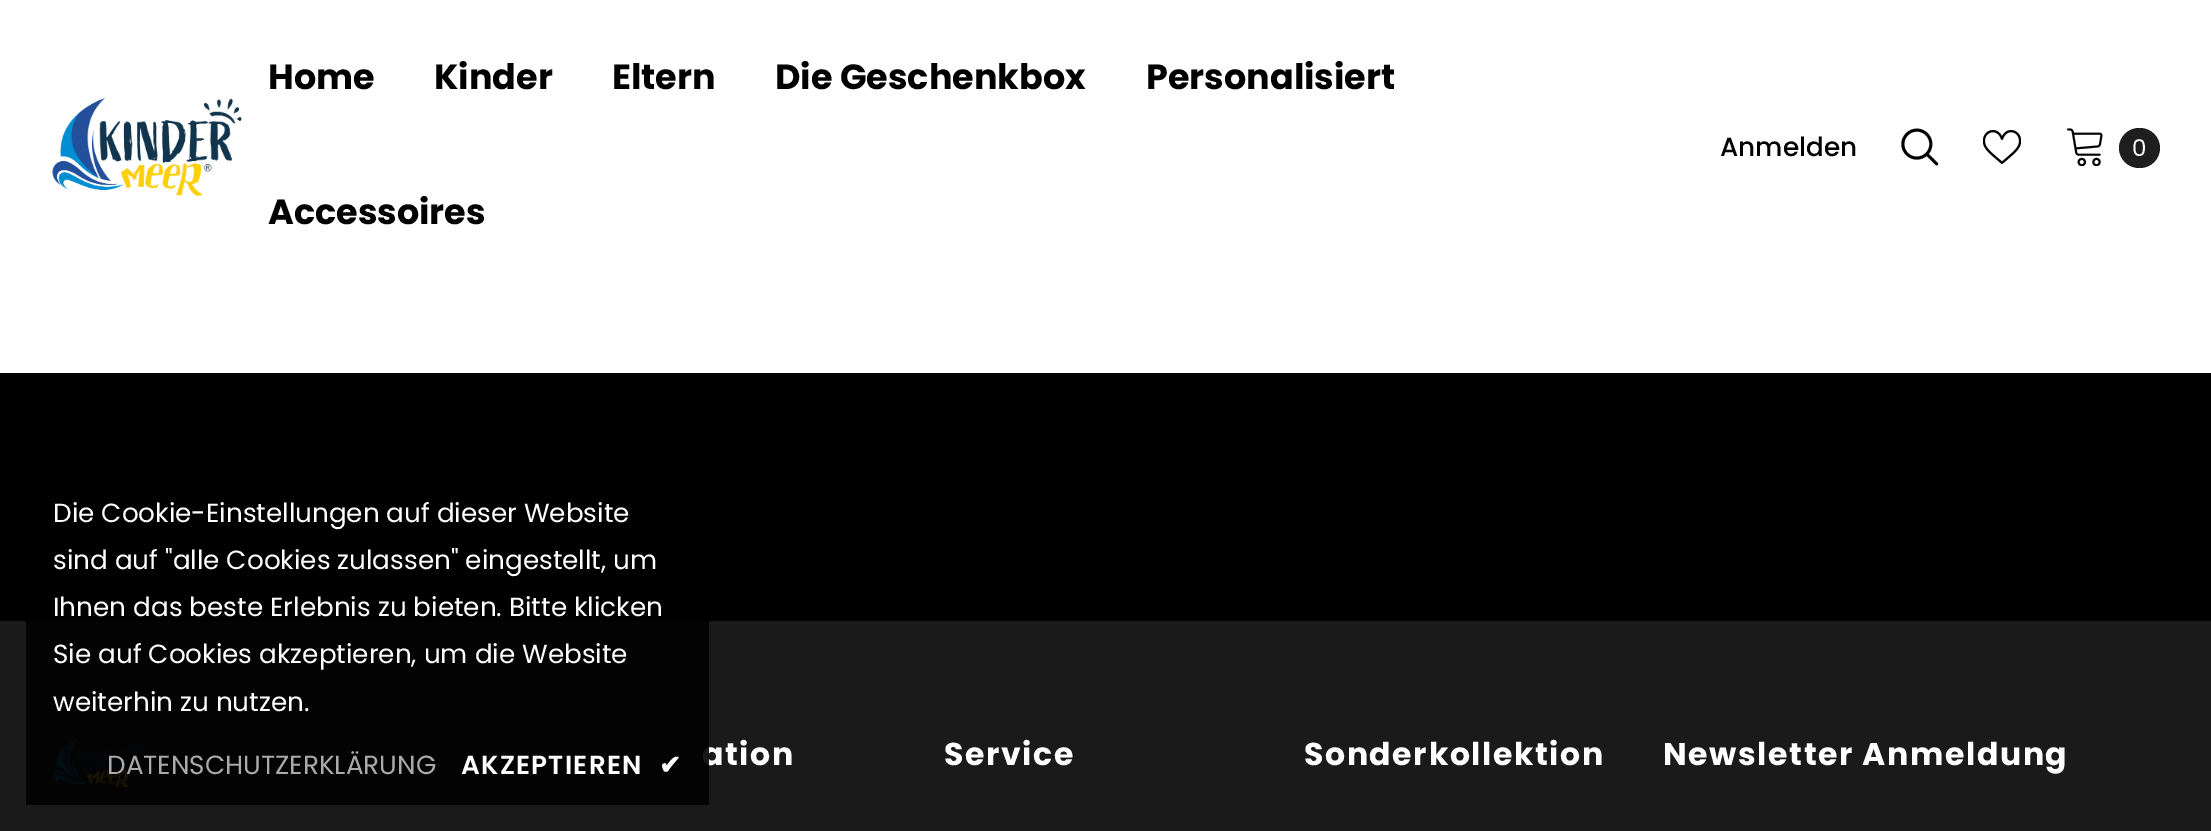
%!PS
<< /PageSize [2211 831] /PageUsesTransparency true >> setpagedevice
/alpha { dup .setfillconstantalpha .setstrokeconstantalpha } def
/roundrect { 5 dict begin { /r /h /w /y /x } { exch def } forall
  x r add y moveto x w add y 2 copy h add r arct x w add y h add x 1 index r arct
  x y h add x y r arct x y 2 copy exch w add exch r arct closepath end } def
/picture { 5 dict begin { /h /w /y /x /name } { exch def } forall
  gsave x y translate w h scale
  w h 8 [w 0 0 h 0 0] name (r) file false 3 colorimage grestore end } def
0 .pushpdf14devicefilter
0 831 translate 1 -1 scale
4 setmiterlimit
1 setgray
0 0 2211 831 rectfill
(img1.rgb) 52 98 190 98 picture
/Poppins-Bold [35 0 0 -35 0 0] selectfont
0 setgray
268 89 moveto (Home) show
434 89 moveto (Kinder) show
612 89 moveto (Eltern) show
775 89 moveto (Die Geschenkbox) show
1146 89 moveto (Personalisiert) show
268 224 moveto (Accessoires) show
/Poppins-Medium [26.25 0 0 -26.25 0 0] selectfont
1720 156 moveto (Anmelden) show
(img2.rgb) 1901 128 38 38 picture
(img3.rgb) 1983 129 38 35 picture
(img4.rgb) 2067 128 36 38 picture
0.118 setgray
2119 128 41 40 20 roundrect fill
/Poppins-Regular [23 0 0 -23 0 0] selectfont
1 setgray
2132 156 moveto (0) show
0 setgray
0 373 2211 248 rectfill
0.102 setgray
0 621 2211 210 rectfill
(img5.rgb) 52 738 97 50 picture
/Poppins-Bold [31.5 0 0 -31.5 0 0] selectfont
1 setgray
702 765 moveto 1.6 0 (ation) ashow
0.9 alpha
0 setgray
26 621 683 184 rectfill
/Poppins-Regular [26.25 0 0 -26.25 0 0] selectfont
1 alpha
1 setgray
53 522 moveto (Die Cookie-Einstellungen auf dieser Website) show
53 569 moveto (sind auf "alle Cookies zulassen" eingestellt, um) show
53 616 moveto (Ihnen das beste Erlebnis zu bieten. Bitte klicken) show
53 663 moveto (Sie auf Cookies akzeptieren, um die Website) show
53 711 moveto (weiterhin zu nutzen.) show
0.667 setgray
107 774 moveto (DATENSCHUTZERKLÄRUNG) show
/Poppins-SemiBold [26.25 0 0 -26.25 0 0] selectfont
1 setgray
461 774 moveto 1.25 0 (AKZEPTIEREN) ashow
/DejaVuSans-Bold [26.25 0 0 -26.25 0 0] selectfont
659 774 moveto 1.25 0 (✔) ashow
/Poppins-Bold [31.5 0 0 -31.5 0 0] selectfont
944 765 moveto 1.6 0 (Service) ashow
1304 765 moveto 1.6 0 (Sonderkollektion) ashow
1663 765 moveto 1.6 0 (Newsletter Anmeldung) ashow
.poppdf14devicefilter showpage
